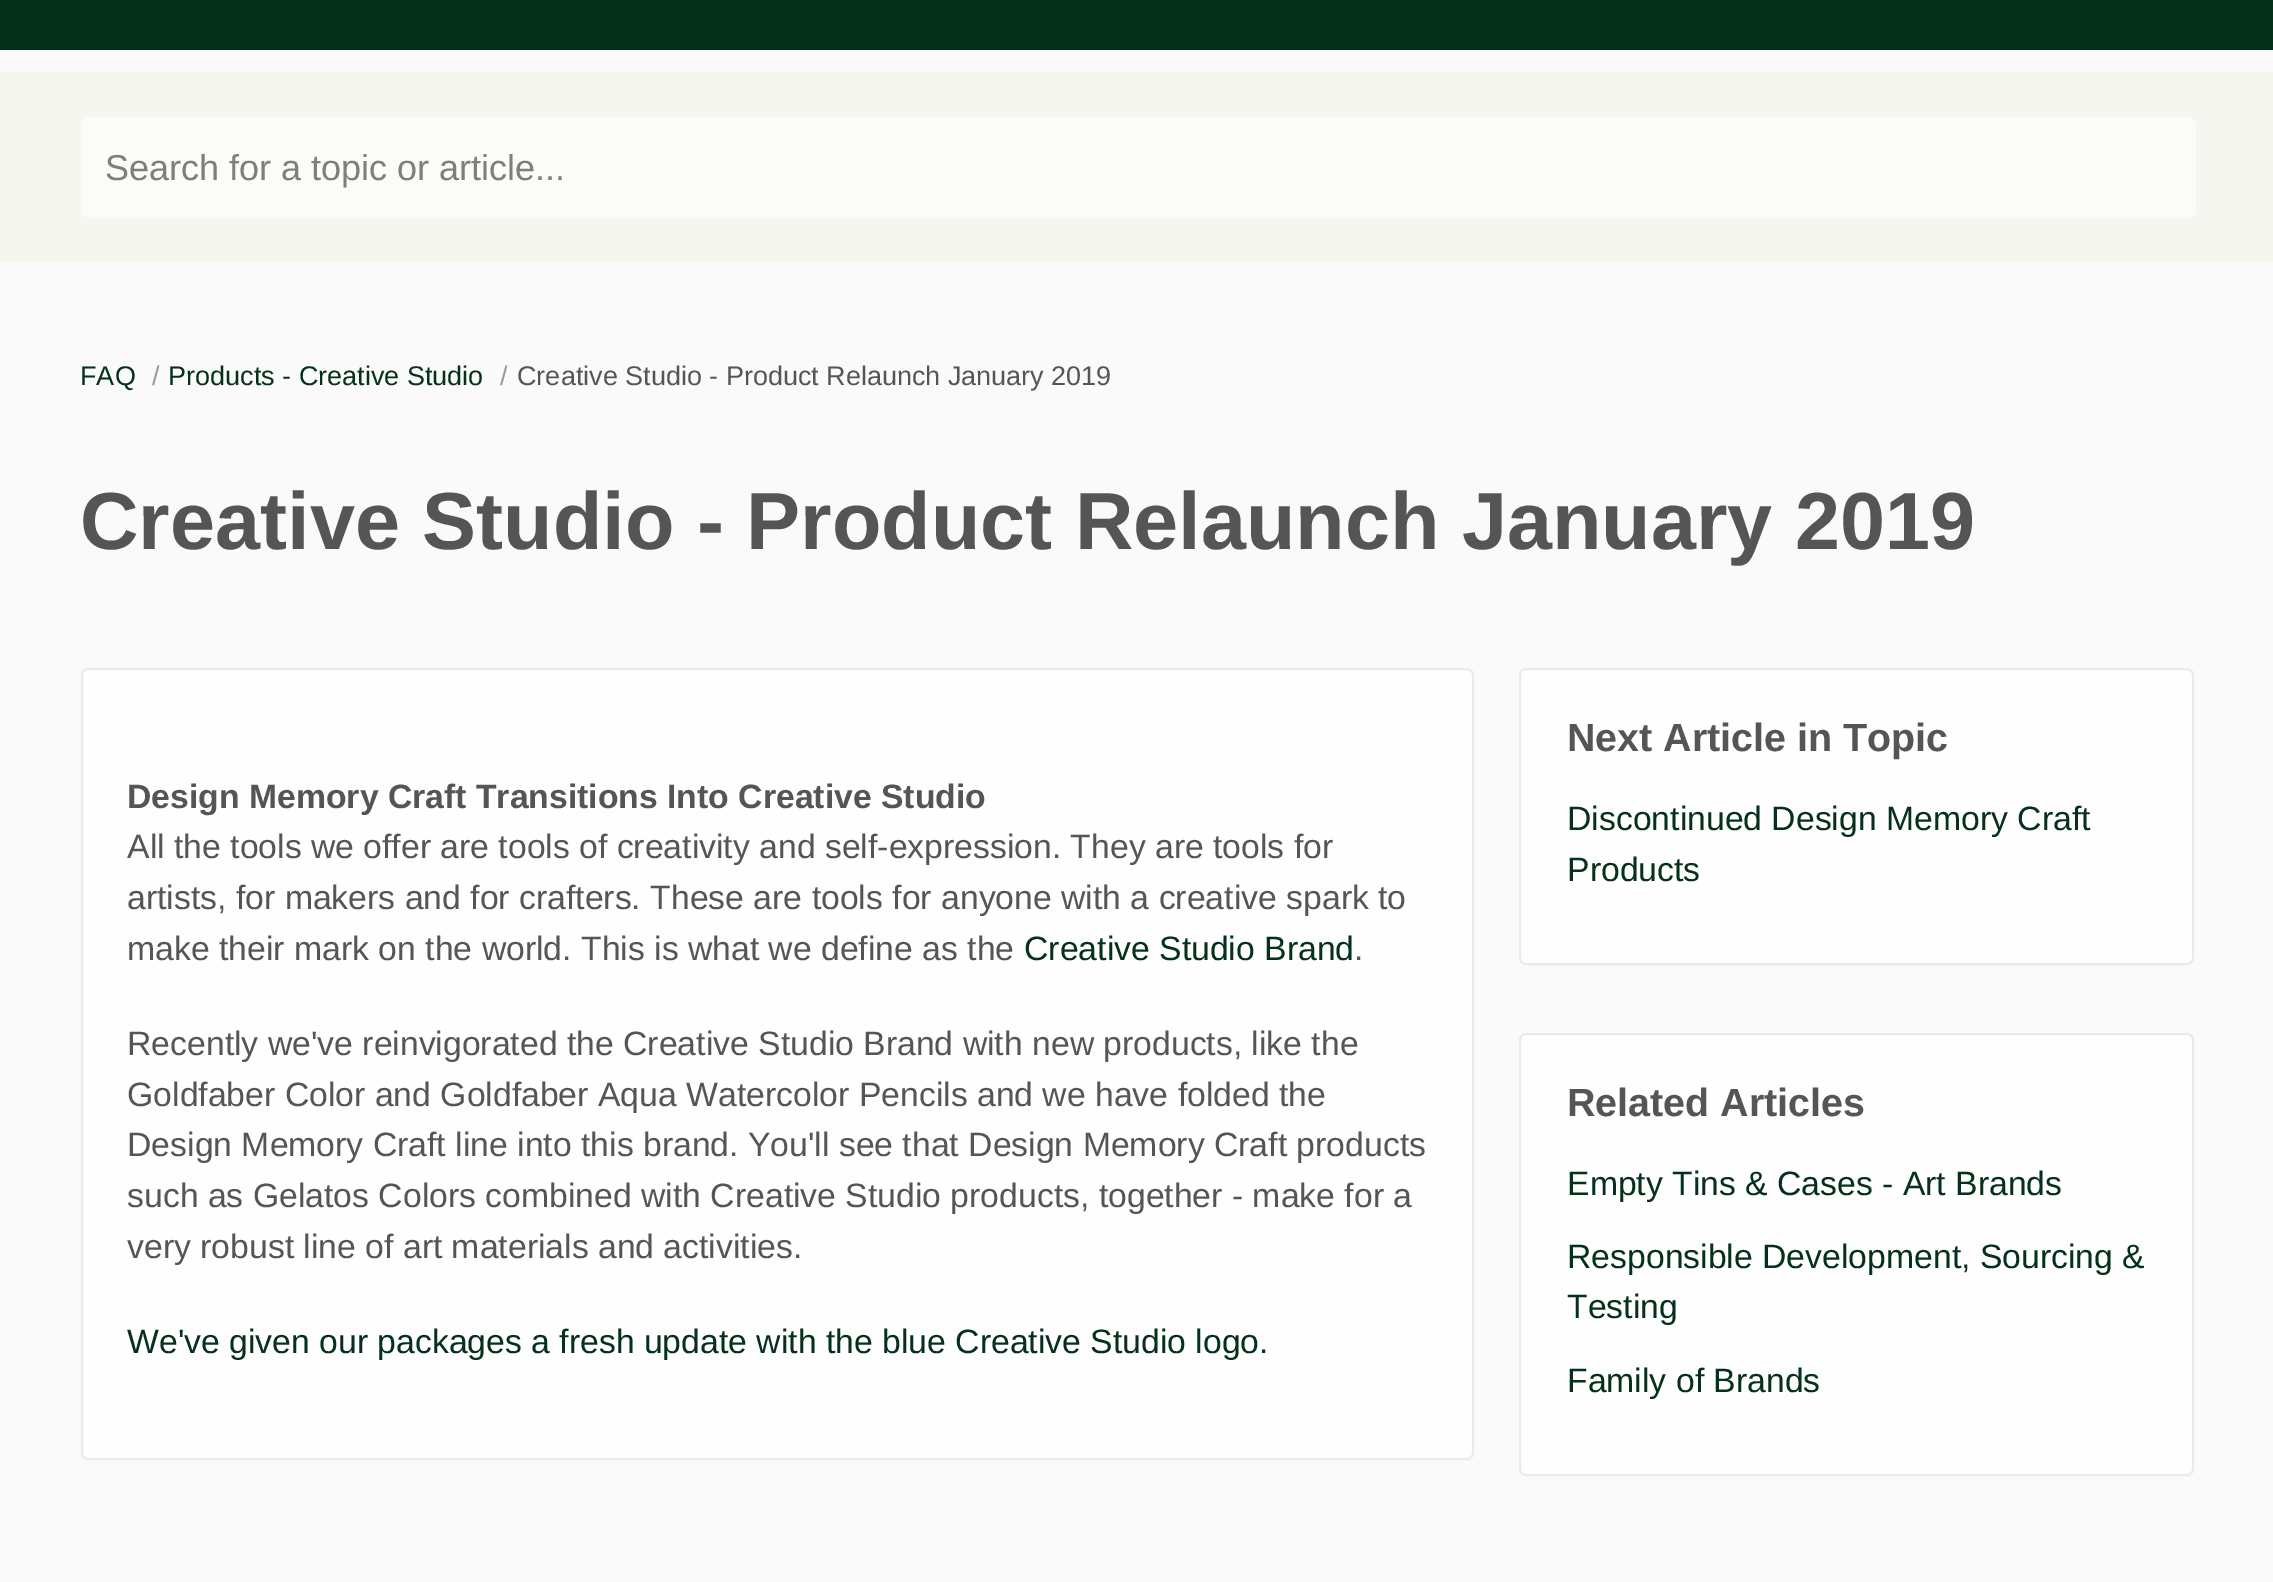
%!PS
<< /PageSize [2273 1582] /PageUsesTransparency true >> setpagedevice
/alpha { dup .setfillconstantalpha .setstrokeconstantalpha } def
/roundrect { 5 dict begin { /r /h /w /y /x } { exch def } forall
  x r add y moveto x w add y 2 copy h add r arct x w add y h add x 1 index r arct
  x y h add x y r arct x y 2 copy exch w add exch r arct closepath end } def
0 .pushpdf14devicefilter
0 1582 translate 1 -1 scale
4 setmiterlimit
0.98 setgray
0 0 2273 1582 rectfill
0.02 0.188 0.102 setrgbcolor
0 0 2273 50 rectfill
0.965 0.965 0.941 setrgbcolor
0 72 2273 191 rectfill
0.984 0.984 0.973 setrgbcolor
81 117 2115 101 9 roundrect fill
/LiberationSans-Regular [36 0 0 -36 0 0] selectfont
0.494 0.494 0.486 setrgbcolor
105 180 moveto (Search for a topic or article...) show
/LiberationSans-Regular [27 0 0 -27 0 0] selectfont
0.02 0.188 0.102 setrgbcolor
80 385 moveto (FAQ) show
0.6 setgray
152 385 moveto (/) show
0.02 0.188 0.102 setrgbcolor
168 385 moveto (Products - Creative Studio) show
0.6 setgray
500 385 moveto (/) show
0.333 setgray
517 385 moveto (Creative Studio - Product Relaunch January 2019) show
/LiberationSans-Bold [81 0 0 -81 0 0] selectfont
80 549 moveto (Creative Studio - Product Relaunch January 2019) show
0.996 setgray
81 668 1393 792 7 roundrect fill
0.08 alpha
0 setgray
2 setlinewidth
82 669 1391 790 6 roundrect stroke
/LiberationSans-Bold [33.75 0 0 -33.75 0 0] selectfont
1 alpha
0.333 setgray
127 808 moveto (Design Memory Craft Transitions Into Creative Studio) show
/LiberationSans-Regular [33.75 0 0 -33.75 0 0] selectfont
127 858 moveto (All the tools we offer are tools of creativity and self-expression. They are tools for) show
127 909 moveto (artists, for makers and for crafters. These are tools for anyone with a creative spark to) show
127 960 moveto (make their mark on the world. This is what we define as the) show
0.02 0.188 0.102 setrgbcolor
1024 960 moveto (Creative Studio Brand) show
0.333 setgray
1354 960 moveto (.) show
127 1055 moveto (Recently we've reinvigorated the Creative Studio Brand with new products, like the) show
127 1106 moveto (Goldfaber Color and Goldfaber Aqua Watercolor Pencils and we have folded the) show
127 1156 moveto (Design Memory Craft line into this brand. You'll see that Design Memory Craft products) show
127 1207 moveto (such as Gelatos Colors combined with Creative Studio products, together - make for a) show
127 1258 moveto (very robust line of art materials and activities.) show
0.02 0.188 0.102 setrgbcolor
127 1353 moveto (We've given our packages a fresh update with the blue Creative Studio logo.) show
0.996 setgray
1519 668 675 297 7 roundrect fill
0.08 alpha
0 setgray
1520 669 673 295 6 roundrect stroke
/LiberationSans-Bold [39.4 0 0 -39.4 0 0] selectfont
1 alpha
0.333 setgray
1567 751 moveto (Next Article in Topic) show
/LiberationSans-Regular [33.75 0 0 -33.75 0 0] selectfont
0.02 0.188 0.102 setrgbcolor
1567 830 moveto (Discontinued Design Memory Craft) show
1567 881 moveto (Products) show
0.996 setgray
1519 1033 675 443 7 roundrect fill
0.08 alpha
0 setgray
1520 1034 673 441 6 roundrect stroke
/LiberationSans-Bold [39.4 0 0 -39.4 0 0] selectfont
1 alpha
0.333 setgray
1567 1116 moveto (Related Articles) show
/LiberationSans-Regular [33.75 0 0 -33.75 0 0] selectfont
0.02 0.188 0.102 setrgbcolor
1567 1195 moveto (Empty Tins & Cases - Art Brands) show
1567 1268 moveto (Responsible Development, Sourcing &) show
1567 1318 moveto (Testing) show
1567 1392 moveto (Family of Brands) show
.poppdf14devicefilter showpage
